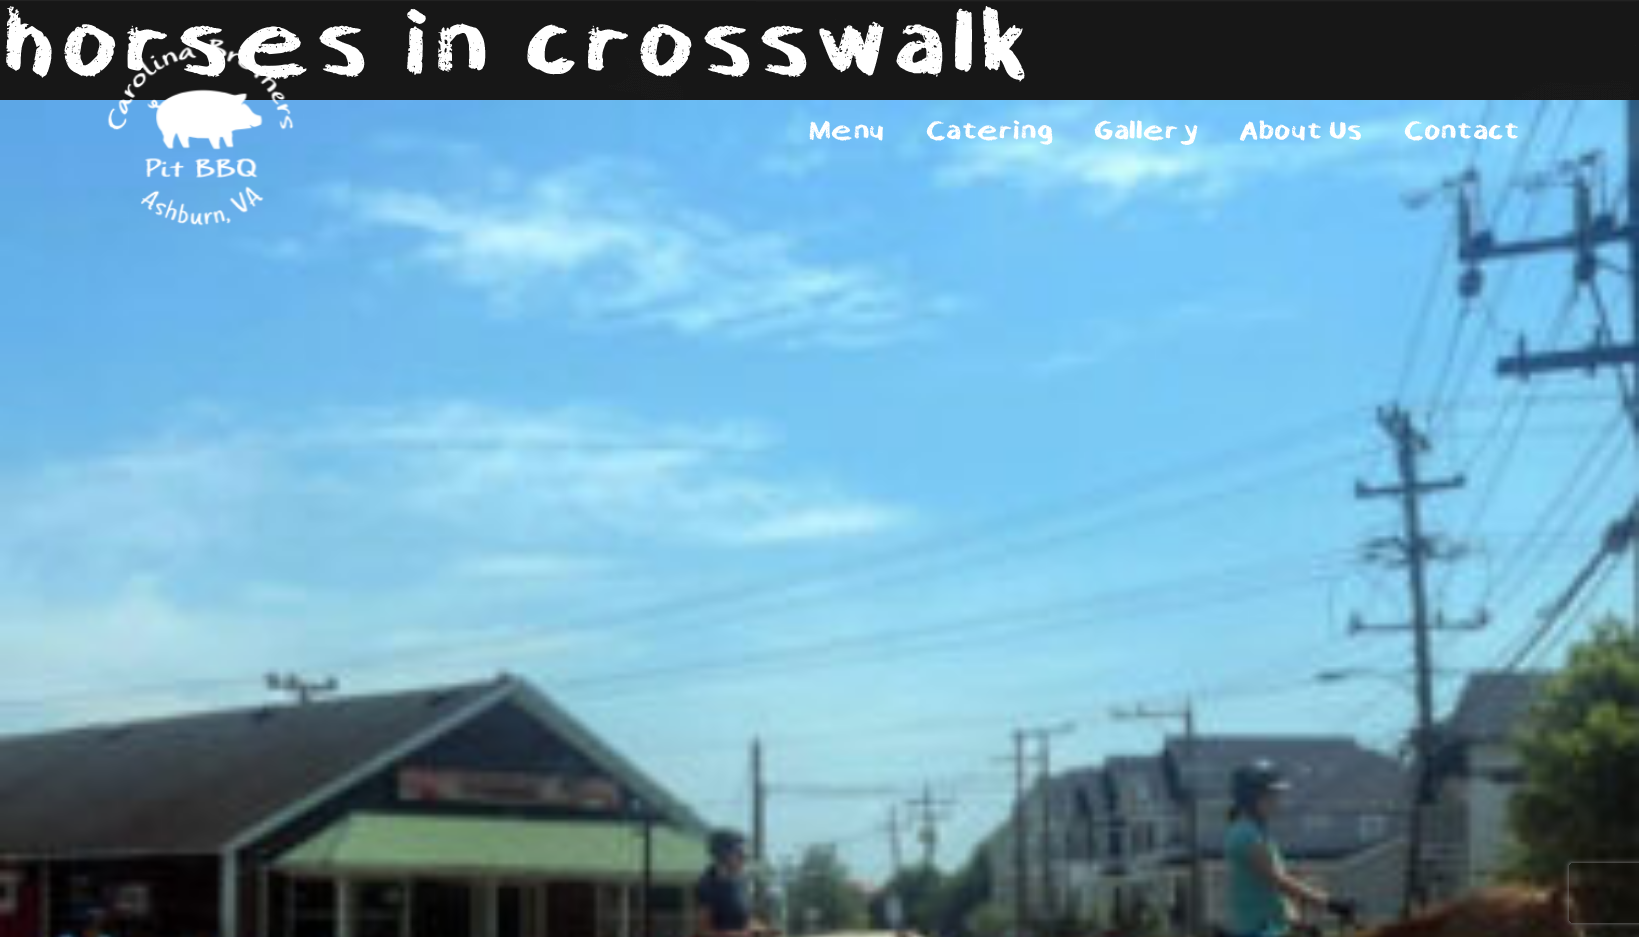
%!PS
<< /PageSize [1639 937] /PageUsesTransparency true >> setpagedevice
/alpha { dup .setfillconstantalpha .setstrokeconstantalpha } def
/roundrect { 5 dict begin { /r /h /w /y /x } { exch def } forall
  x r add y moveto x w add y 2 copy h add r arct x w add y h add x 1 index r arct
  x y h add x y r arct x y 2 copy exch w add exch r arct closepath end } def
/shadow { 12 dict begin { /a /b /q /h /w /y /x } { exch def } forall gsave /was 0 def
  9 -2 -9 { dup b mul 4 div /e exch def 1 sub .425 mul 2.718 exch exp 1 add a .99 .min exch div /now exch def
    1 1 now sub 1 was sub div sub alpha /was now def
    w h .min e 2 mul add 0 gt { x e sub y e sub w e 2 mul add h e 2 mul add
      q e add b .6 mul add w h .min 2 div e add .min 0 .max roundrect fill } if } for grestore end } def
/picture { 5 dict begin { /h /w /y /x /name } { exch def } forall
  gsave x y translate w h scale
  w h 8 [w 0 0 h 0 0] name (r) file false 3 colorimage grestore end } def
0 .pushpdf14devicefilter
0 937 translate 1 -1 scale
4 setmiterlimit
0.133 setgray
0 0 1639 937 rectfill
(img1.rgb) 0 1 1639 99 picture
/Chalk-Regular [120 0 0 -120 0 0] selectfont
1 setgray
0 87 moveto (horses in crosswalk) show
(img2.rgb) 0 100 1639 837 picture
(img3.rgb) 107 38 187 188 picture
/Chalk-Regular [35 0 0 -35 0 0] selectfont
808 143 moveto -1.5 0 (Menu) ashow
925 143 moveto -1.5 0 (Catering) ashow
1093 143 moveto -1.5 0 (Gallery) ashow
1238 143 moveto -1.5 0 (About Us) ashow
1403 143 moveto -1.5 0 (Contact) ashow
gsave
newpath 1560 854 moveto 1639 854 lineto 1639 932 lineto 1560 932 lineto closepath 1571 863 moveto 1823 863 lineto 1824 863 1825 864 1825 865 curveto 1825 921 lineto 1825 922 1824 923 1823 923 curveto 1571 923 lineto 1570 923 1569 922 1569 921 curveto 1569 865 lineto 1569 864 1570 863 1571 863 curveto closepath eoclip newpath
0.502 setgray
1569 863 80 60 2 2.5 1 shadow
grestore
.poppdf14devicefilter showpage
